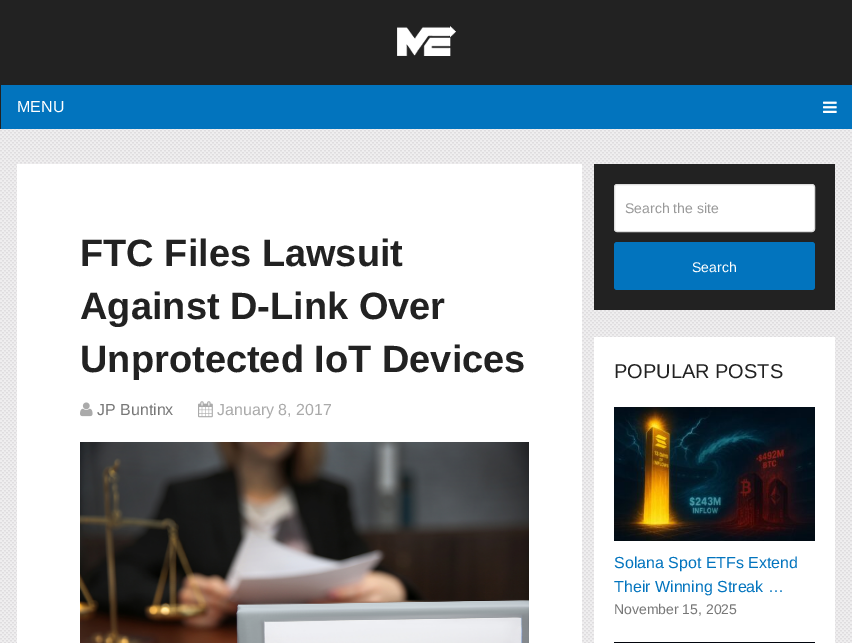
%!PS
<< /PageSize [852 643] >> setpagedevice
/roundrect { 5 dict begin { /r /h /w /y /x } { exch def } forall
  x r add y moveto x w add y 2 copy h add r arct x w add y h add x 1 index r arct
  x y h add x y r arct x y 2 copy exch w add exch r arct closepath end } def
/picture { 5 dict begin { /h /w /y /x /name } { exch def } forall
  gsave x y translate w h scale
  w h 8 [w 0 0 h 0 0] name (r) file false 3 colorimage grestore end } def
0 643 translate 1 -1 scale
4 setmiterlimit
1 setgray
0 0 852 643 rectfill
(img1.rgb) 0 129 852 514 picture
0.133 setgray
0 0 852 129 rectfill
(img2.rgb) 397 26 59 30 picture
0.008 0.455 0.745 setrgbcolor
1 85 851 44 rectfill
/LiberationSans-Regular [16 0 0 -16 0 0] selectfont
1 setgray
17 112 moveto (MENU) show
(img3.rgb) 823 101 14 12 picture
17 164 565 479 rectfill
/LiberationSans-Bold [38 0 0 -38 0 0] selectfont
0.133 setgray
80 266 moveto (FTC Files Lawsuit) show
80 319 moveto (Against D-Link Over) show
80 372 moveto (Unprotected IoT Devices) show
(img4.rgb) 80 402 13 15 picture
/LiberationSans-Regular [16 0 0 -16 0 0] selectfont
0.467 setgray
97 415 moveto (JP Buntinx) show
(img5.rgb) 198 401 15 17 picture
0.667 setgray
217 415 moveto (January 8, 2017) show
(img6.rgb) 80 442 449 201 picture
0.133 setgray
594 164 241 146 rectfill
1 setgray
614.5 184.5 200 47 2.5 roundrect gsave fill grestore
0.867 setgray
stroke
/LiberationSans-Regular [14 0 0 -14 0 0] selectfont
0.6 setgray
625 213 moveto (Search the site) show
0.008 0.455 0.745 setrgbcolor
614 242 201 48 3 roundrect fill
1 setgray
692 272 moveto (Search) show
594 337 241 306 rectfill
/LiberationSans-Regular [20 0 0 -20 0 0] selectfont
0.133 setgray
614 378 moveto (POPULAR POSTS) show
(img7.rgb) 614 407 201 134 picture
/LiberationSans-Regular [16 0 0 -16 0 0] selectfont
0.008 0.455 0.745 setrgbcolor
614 568 moveto (Solana Spot ETFs Extend) show
614 592 moveto (Their Winning Streak …) show
/LiberationSans-Regular [14 0 0 -14 0 0] selectfont
0.467 setgray
614 614 moveto (November 15, 2025) show
(img8.rgb) 614 642 201 1 picture
showpage
